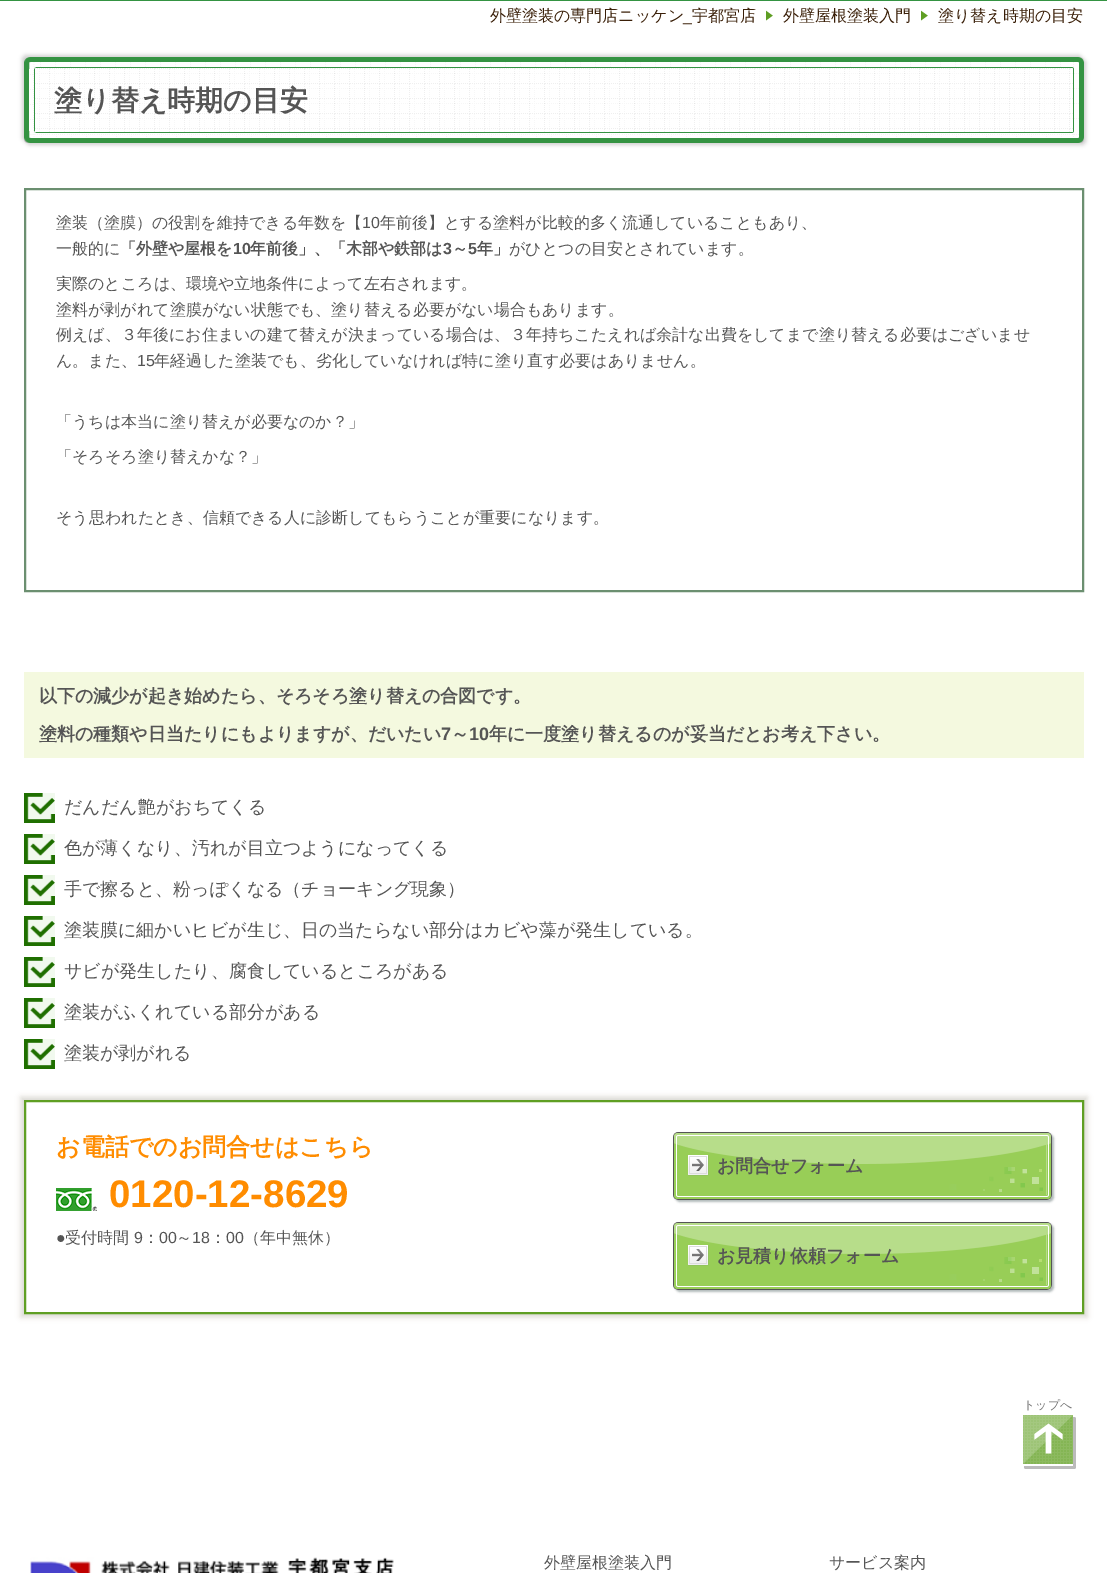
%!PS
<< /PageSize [1107 1573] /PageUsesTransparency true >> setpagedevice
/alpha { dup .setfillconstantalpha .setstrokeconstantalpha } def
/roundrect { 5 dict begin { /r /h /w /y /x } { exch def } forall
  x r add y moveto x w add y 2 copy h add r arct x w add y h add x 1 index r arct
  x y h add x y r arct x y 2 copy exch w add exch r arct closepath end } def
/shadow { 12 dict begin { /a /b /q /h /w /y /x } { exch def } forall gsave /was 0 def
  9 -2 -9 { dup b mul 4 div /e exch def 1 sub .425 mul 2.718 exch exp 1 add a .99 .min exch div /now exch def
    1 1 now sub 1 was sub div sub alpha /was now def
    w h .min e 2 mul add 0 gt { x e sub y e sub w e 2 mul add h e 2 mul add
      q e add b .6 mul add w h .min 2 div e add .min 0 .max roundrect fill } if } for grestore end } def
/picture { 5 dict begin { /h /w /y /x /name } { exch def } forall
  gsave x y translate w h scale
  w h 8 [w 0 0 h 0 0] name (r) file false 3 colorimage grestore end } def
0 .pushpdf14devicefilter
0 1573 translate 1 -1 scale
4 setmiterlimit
1 setgray
0 0 1107 1573 rectfill
0.204 0.576 0.259 setrgbcolor
0 0 1107 1 rectfill
/WenQuanYiZenHei-Medium [16 0 0 -16 0 0] selectfont
0.227 0.122 0.031 setrgbcolor
490 21 moveto (外壁塗装の専門店ニッケン) show
/LiberationSans-Regular [16 0 0 -16 0 0] selectfont
683 21 moveto (_) show
/WenQuanYiZenHei-Medium [16 0 0 -16 0 0] selectfont
692 21 moveto (宇都宮店) show
(img1.rgb) 766 10 7 11 picture
783 21 moveto (外壁屋根塗装入門) show
(img1.rgb) 921 10 7 11 picture
938 21 moveto (塗り替え時期の目安) show
0.82 0.816 0.816 setrgbcolor
22 55 1060 86 4 2 1 shadow
26 59 1060 86 4 2 1 shadow
(img2.rgb) 24 57 1060 86 picture
(img3.rgb) 24 69 1060 62 picture
(img4.rgb) 36 57 1035 86 picture
(img5.rgb) 35 68 1038 64 picture
/WenQuanYiZenHei-Bold [28 0 0 -28 0 0] selectfont
0.333 setgray
54 110 moveto (塗り替え時期の目安) show
0.42 0.561 0.439 setrgbcolor
2 setlinewidth
25 189 1058 402 rectstroke
/WenQuanYiZenHei-Medium [16 0 0 -16 0 0] selectfont
0.333 setgray
56 228 moveto (塗装（塗膜）の役割を維持できる年数を【) show
/LiberationSans-Regular [16 0 0 -16 0 0] selectfont
362 228 moveto (10) show
/WenQuanYiZenHei-Medium [16 0 0 -16 0 0] selectfont
380 228 moveto (年前後】とする塗料が比較的多く流通していることもあり、) show
56 254 moveto (一般的に) show
/WenQuanYiZenHei-Bold [16 0 0 -16 0 0] selectfont
120 254 moveto (「外壁や屋根を) show
/LiberationSans-Bold [16 0 0 -16 0 0] selectfont
233 254 moveto (10) show
/WenQuanYiZenHei-Bold [16 0 0 -16 0 0] selectfont
250 254 moveto (年前後」、「木部や鉄部は) show
/LiberationSans-Bold [16 0 0 -16 0 0] selectfont
443 254 moveto (3) show
/WenQuanYiZenHei-Bold [16 0 0 -16 0 0] selectfont
452 254 moveto (～) show
/LiberationSans-Bold [16 0 0 -16 0 0] selectfont
468 254 moveto (5) show
/WenQuanYiZenHei-Bold [16 0 0 -16 0 0] selectfont
477 254 moveto (年」) show
/WenQuanYiZenHei-Medium [16 0 0 -16 0 0] selectfont
509 254 moveto (がひとつの目安とされています。) show
56 289 moveto (実際のところは、環境や立地条件によって左右されます。) show
56 315 moveto (塗料が剥がれて塗膜がない状態でも、塗り替える必要がない場合もあります。) show
56 340 moveto (例えば、３年後にお住まいの建て替えが決まっている場合は、３年持ちこたえれば余計な出費をしてまで塗り替える必要はございませ) show
56 366 moveto (ん。また、) show
/LiberationSans-Regular [16 0 0 -16 0 0] selectfont
137 366 moveto (15) show
/WenQuanYiZenHei-Medium [16 0 0 -16 0 0] selectfont
154 366 moveto (年経過した塗装でも、劣化していなければ特に塗り直す必要はありません。) show
56 427 moveto (「うちは本当に塗り替えが必要なのか？」) show
56 462 moveto (「そろそろ塗り替えかな？」) show
56 523 moveto (そう思われたとき、信頼できる人に診断してもらうことが重要になります。) show
0.957 0.976 0.875 setrgbcolor
24 672 1060 86 rectfill
/WenQuanYiZenHei-Bold [18 0 0 -18 0 0] selectfont
0.333 setgray
39 702 moveto (以下の減少が起き始めたら、そろそろ塗り替えの合図です。) show
39 740 moveto (塗料の種類や日当たりにもよりますが、だいたい) show
/LiberationSans-Bold [18 0 0 -18 0 0] selectfont
441 740 moveto (7) show
/WenQuanYiZenHei-Bold [18 0 0 -18 0 0] selectfont
451 740 moveto (～) show
/LiberationSans-Bold [18 0 0 -18 0 0] selectfont
469 740 moveto (10) show
/WenQuanYiZenHei-Bold [18 0 0 -18 0 0] selectfont
489 740 moveto (年に一度塗り替えるのが妥当だとお考え下さい。) show
(img6.rgb) 24 793 31 30 picture
/WenQuanYiZenHei-Medium [18 0 0 -18 0 0] selectfont
64 813 moveto (だんだん艶がおちてくる) show
(img6.rgb) 24 834 31 30 picture
64 854 moveto (色が薄くなり、汚れが目立つようになってくる) show
(img6.rgb) 24 875 31 30 picture
64 895 moveto (手で擦ると、粉っぽくなる（チョーキング現象）) show
(img6.rgb) 24 916 31 30 picture
64 936 moveto (塗装膜に細かいヒビが生じ、日の当たらない部分はカビや藻が発生している。) show
(img6.rgb) 24 957 31 30 picture
64 977 moveto (サビが発生したり、腐食しているところがある) show
(img6.rgb) 24 998 31 30 picture
64 1018 moveto (塗装がふくれている部分がある) show
(img6.rgb) 24 1039 31 30 picture
64 1059 moveto (塗装が剥がれる) show
gsave
newpath 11 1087 moveto 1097 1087 lineto 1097 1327 lineto 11 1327 lineto closepath 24 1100 moveto 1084 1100 lineto 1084 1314 lineto 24 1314 lineto closepath eoclip newpath
0.847 0.843 0.816 setrgbcolor
21 1097 1066 220 0 3 1 shadow
grestore
0.373 0.624 0.137 setrgbcolor
25 1101 1058 212 rectstroke
/WenQuanYiZenHei-Bold [24 0 0 -24 0 0] selectfont
1 0.549 0 setrgbcolor
56 1155 moveto (お電話でのお問合せはこちら) show
(img7.rgb) 56 1188 41 23 picture
/LiberationSans-Bold [38.5 0 0 -38.5 0 0] selectfont
109 1207 moveto (0120-12-8629) show
/LiberationSans-Regular [16 0 0 -16 0 0] selectfont
0.333 setgray
56 1243 moveto (●) show
/WenQuanYiZenHei-Medium [16 0 0 -16 0 0] selectfont
65 1243 moveto (受付時間) show
/LiberationSans-Regular [16 0 0 -16 0 0] selectfont
134 1243 moveto (9) show
/WenQuanYiZenHei-Medium [16 0 0 -16 0 0] selectfont
143 1243 moveto (：) show
/LiberationSans-Regular [16 0 0 -16 0 0] selectfont
159 1243 moveto (00) show
/WenQuanYiZenHei-Medium [16 0 0 -16 0 0] selectfont
176 1243 moveto (～) show
/LiberationSans-Regular [16 0 0 -16 0 0] selectfont
192 1243 moveto (18) show
/WenQuanYiZenHei-Medium [16 0 0 -16 0 0] selectfont
210 1243 moveto (：) show
/LiberationSans-Regular [16 0 0 -16 0 0] selectfont
226 1243 moveto (00) show
/WenQuanYiZenHei-Medium [16 0 0 -16 0 0] selectfont
244 1243 moveto (（年中無休）) show
0.698 0.733 0.733 setrgbcolor
675 1134 379 68 5 1 1 shadow
(img8.rgb) 673 1132 379 68 picture
0.718 0.867 0.541 setrgbcolor
678 1137 369 58 rectfill
(img9.rgb) 678 1145 368 50 picture
(img10.rgb) 983 1167 60 25 picture
(img11.rgb) 688 1155 21 21 picture
/WenQuanYiZenHei-Bold [18 0 0 -18 0 0] selectfont
0.333 setgray
717 1172 moveto (お問合せフォーム) show
0.698 0.733 0.733 setrgbcolor
675 1224 379 68 5 1 1 shadow
(img8.rgb) 673 1222 379 68 picture
0.718 0.867 0.541 setrgbcolor
678 1227 369 58 rectfill
(img9.rgb) 678 1235 368 50 picture
(img10.rgb) 983 1257 60 25 picture
(img11.rgb) 688 1245 21 21 picture
0.333 setgray
717 1262 moveto (お見積り依頼フォーム) show
(img12.rgb) 1023 1415 53 54 picture
/WenQuanYiZenHei-Medium [12 0 0 -12 0 0] selectfont
0.455 setgray
1023 1409 moveto (トップへ) show
(img13.rgb) 30 1557 364 16 picture
/WenQuanYiZenHei-Medium [16 0 0 -16 0 0] selectfont
0.333 setgray
544 1568 moveto (外壁屋根塗装入門) show
829 1568 moveto (サービス案内) show
.poppdf14devicefilter showpage
